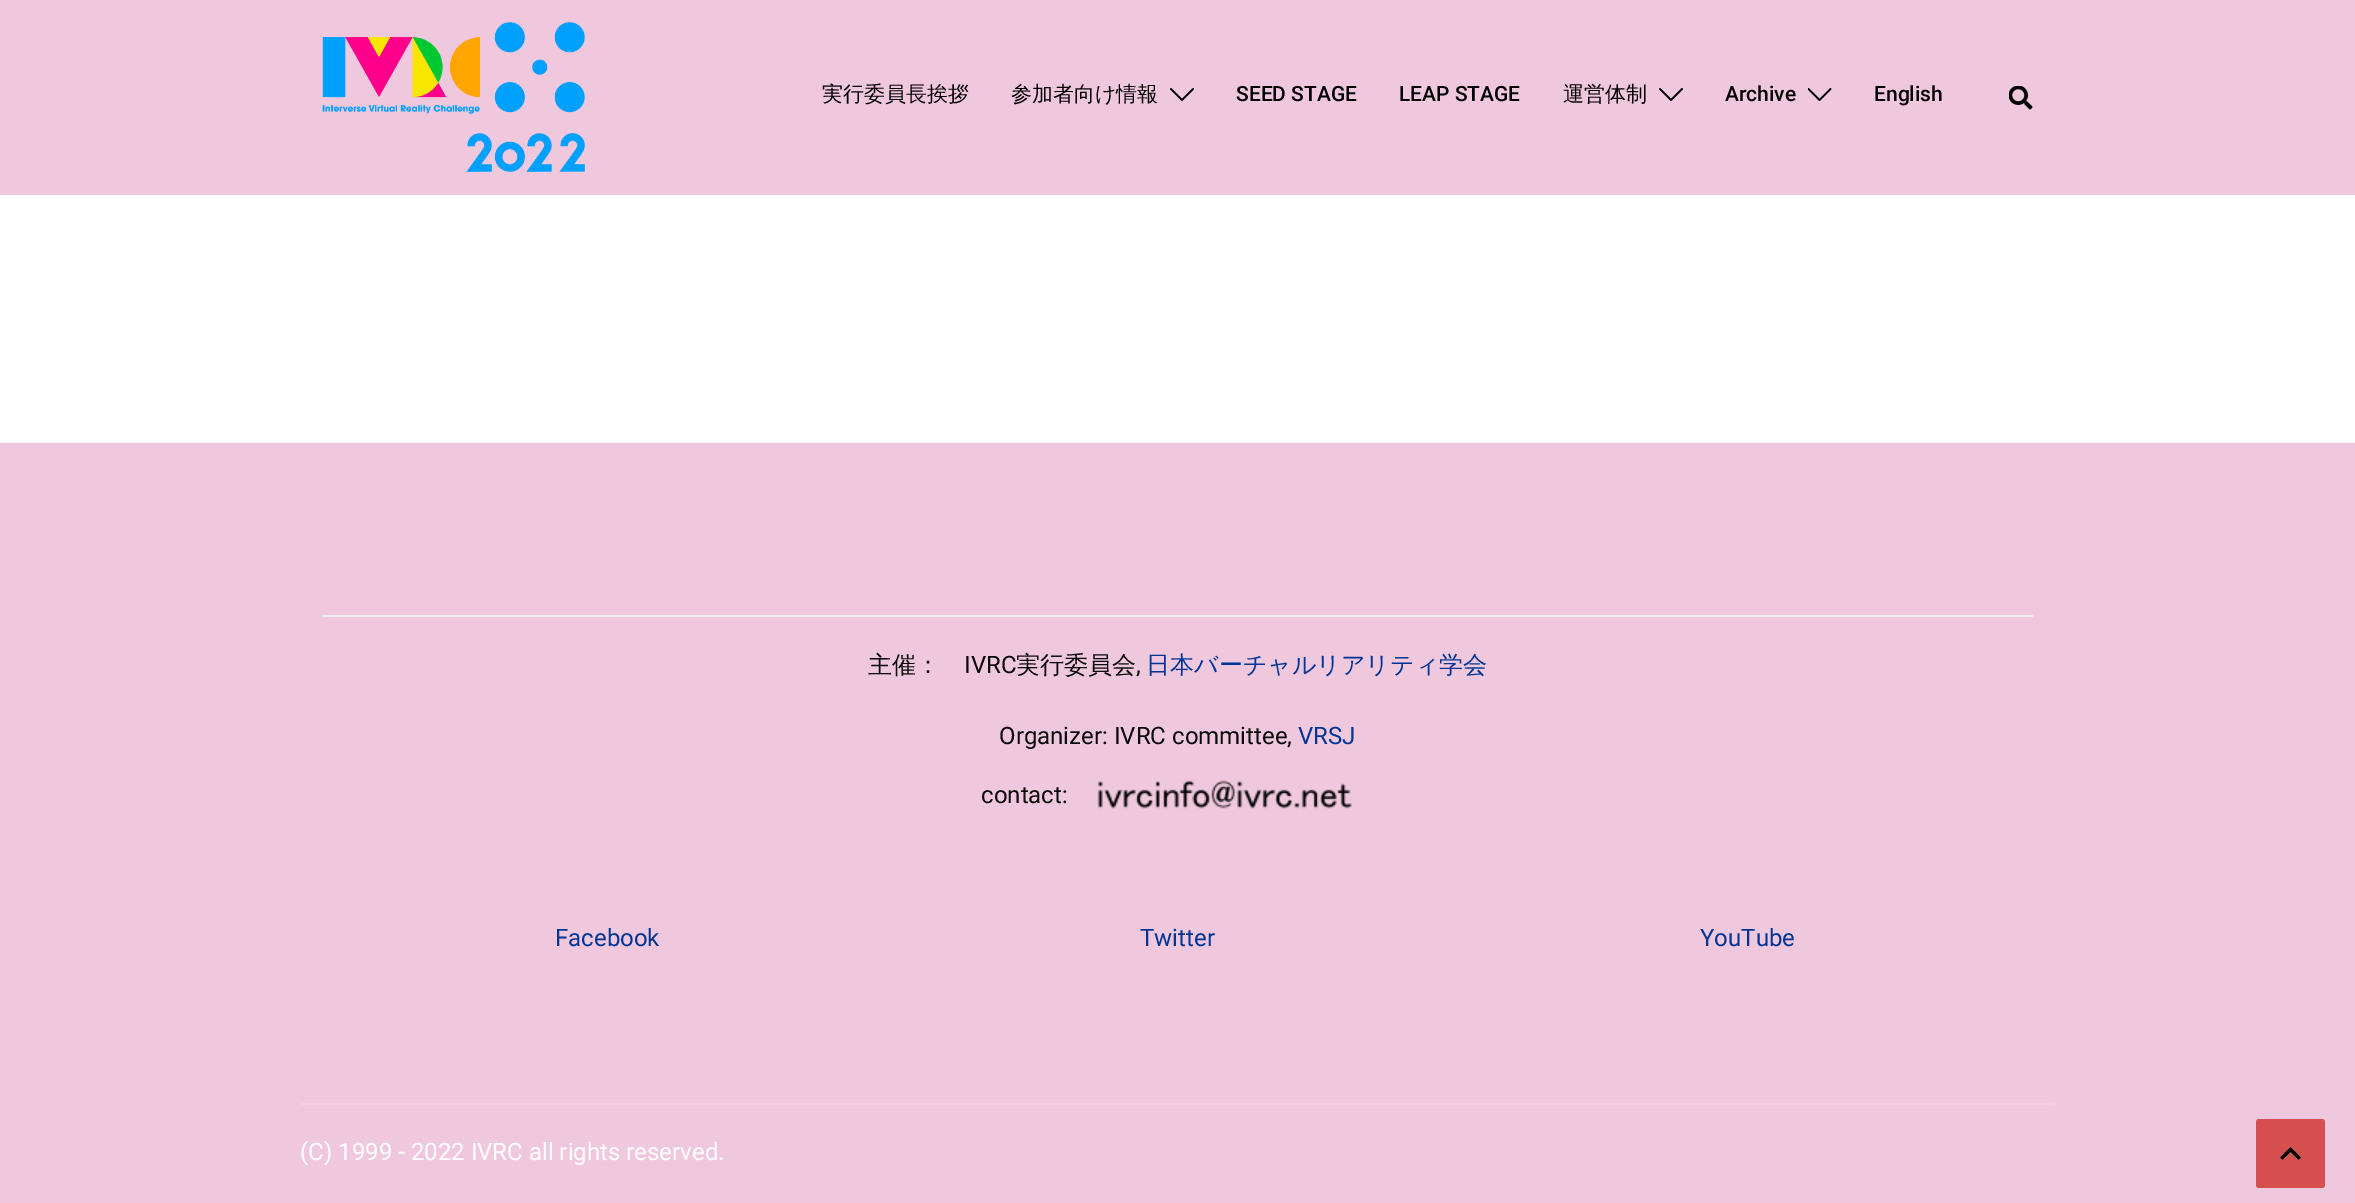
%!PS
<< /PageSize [2355 1203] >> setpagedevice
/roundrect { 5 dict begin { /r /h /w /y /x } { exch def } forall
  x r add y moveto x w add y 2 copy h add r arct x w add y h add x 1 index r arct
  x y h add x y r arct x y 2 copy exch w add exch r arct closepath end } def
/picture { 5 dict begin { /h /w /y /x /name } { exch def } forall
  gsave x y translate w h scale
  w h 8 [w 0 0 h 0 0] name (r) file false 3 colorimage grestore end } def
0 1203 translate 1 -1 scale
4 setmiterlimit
1 setgray
0 0 2355 1203 rectfill
0.941 0.784 0.867 setrgbcolor
0 0 2355 195 rectfill
(img1.rgb) 322 22 263 150 picture
/WenQuanYiZenHei-Medium [21 0 0 -21 0 0] selectfont
0 setgray
822 101 moveto (実行委員長挨拶) show
1011 101 moveto (参加者向け情報) show
(img2.rgb) 1170 88 24 13 picture
/Roboto-Medium [21 0 0 -21 0 0] selectfont
1236 101 moveto (SEED STAGE) show
1399 101 moveto (LEAP STAGE) show
/WenQuanYiZenHei-Medium [21 0 0 -21 0 0] selectfont
1563 101 moveto (運営体制) show
(img2.rgb) 1659 88 24 13 picture
/Roboto-Medium [21 0 0 -21 0 0] selectfont
1725 101 moveto (Archive) show
(img3.rgb) 1808 88 24 13 picture
1874 101 moveto (English) show
(img4.rgb) 2009 86 24 24 picture
0.941 0.784 0.867 setrgbcolor
0 443 2355 760 rectfill
0.933 setgray
323 615 1710 2 rectfill
/WenQuanYiZenHei-Medium [24 0 0 -24 0 0] selectfont
0.039 setgray
868 673 moveto (主催：) show
/Roboto-Regular [24 0 0 -24 0 0] selectfont
964 673 moveto (IVRC) show
/WenQuanYiZenHei-Medium [24 0 0 -24 0 0] selectfont
1016 673 moveto (実行委員会) show
/Roboto-Regular [24 0 0 -24 0 0] selectfont
1136 673 moveto (,) show
/WenQuanYiZenHei-Medium [24 0 0 -24 0 0] selectfont
0 0.208 0.588 setrgbcolor
1146 673 moveto (日本バーチャルリアリティ学会) show
/Roboto-Regular [24 0 0 -24 0 0] selectfont
0.039 setgray
999 744 moveto (Organizer: IVRC committee,) show
0 0.208 0.588 setrgbcolor
1298 744 moveto (VRSJ) show
0.039 setgray
981 803 moveto (contact:) show
(img5.rgb) 1097 780 255 29 picture
0 0.208 0.588 setrgbcolor
555 946 moveto (Facebook) show
1140 946 moveto (Twitter) show
1700 946 moveto (YouTube) show
0.949 0.808 0.878 setrgbcolor
300 1103 1755 2 rectfill
1 setgray
300 1160 moveto (\(C\) 1999 - 2022 IVRC all rights reserved.) show
0.839 0.314 0.314 setrgbcolor
2256 1119 69 69 3 roundrect fill
(img6.rgb) 2280 1147 21 13 picture
showpage
